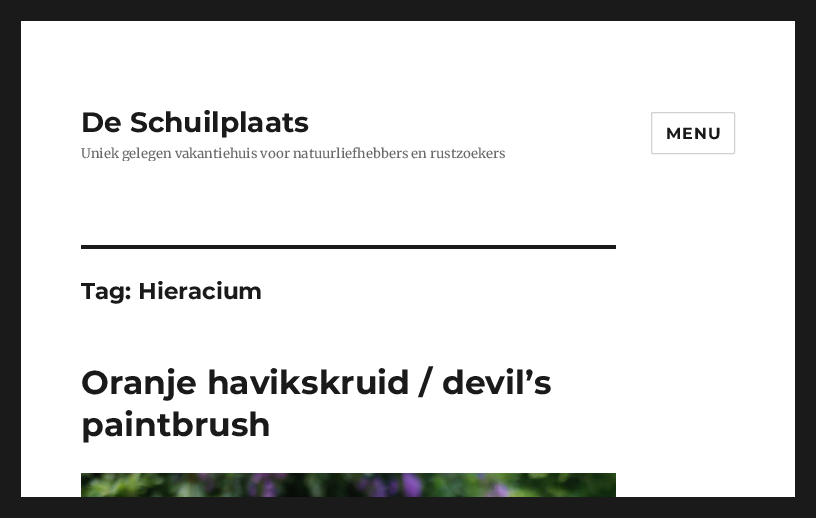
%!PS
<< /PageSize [816 518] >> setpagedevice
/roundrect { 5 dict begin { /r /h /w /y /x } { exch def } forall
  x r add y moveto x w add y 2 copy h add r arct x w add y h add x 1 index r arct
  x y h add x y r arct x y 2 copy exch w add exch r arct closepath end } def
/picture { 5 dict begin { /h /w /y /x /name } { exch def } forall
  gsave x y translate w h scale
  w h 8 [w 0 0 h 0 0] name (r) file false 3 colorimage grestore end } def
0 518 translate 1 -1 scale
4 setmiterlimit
0.102 setgray
0 0 816 518 rectfill
1 setgray
21 21 774 476 rectfill
/Montserrat-Thin [28 0 0 -28 0 0] selectfont
0.102 setgray
81 132 moveto (De Schuilplaats) show
gsave
81 105 424 56 rectclip
/Merriweather-Regular [13 0 0 -13 0 0] selectfont
0.408 setgray
81 158 moveto (Uniek gelegen vakantiehuis voor natuurliefhebbers en rustzoekers) show
grestore
0.82 setgray
651.5 112.5 83 41 1.5 roundrect stroke
/Montserrat-Thin [16 0 0 -16 0 0] selectfont
0.102 setgray
666 139 moveto 1 0 (MENU) ashow
81 245 535 4 rectfill
/Montserrat-Thin [23 0 0 -23 0 0] selectfont
81 299 moveto (Tag: Hieracium) show
/Montserrat-Thin [33 0 0 -33 0 0] selectfont
81 394 moveto (Oranje havikskruid / devil’s) show
81 436 moveto (paintbrush) show
(img1.rgb) 81 473 535 24 picture
showpage
